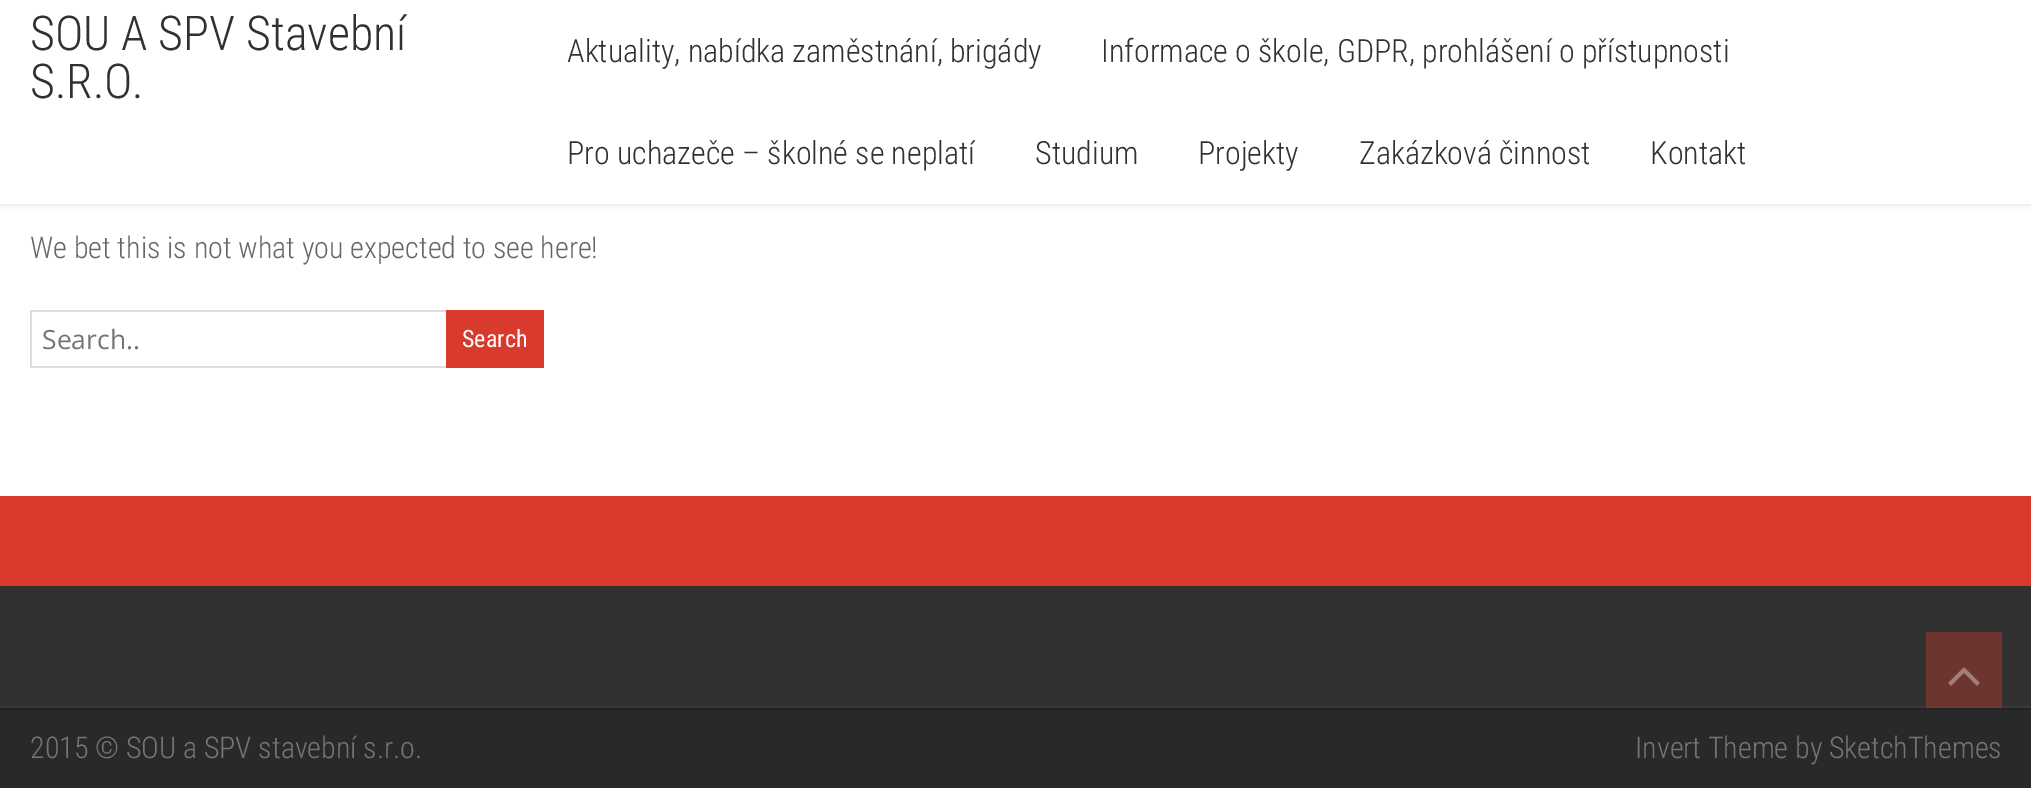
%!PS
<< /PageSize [2031 788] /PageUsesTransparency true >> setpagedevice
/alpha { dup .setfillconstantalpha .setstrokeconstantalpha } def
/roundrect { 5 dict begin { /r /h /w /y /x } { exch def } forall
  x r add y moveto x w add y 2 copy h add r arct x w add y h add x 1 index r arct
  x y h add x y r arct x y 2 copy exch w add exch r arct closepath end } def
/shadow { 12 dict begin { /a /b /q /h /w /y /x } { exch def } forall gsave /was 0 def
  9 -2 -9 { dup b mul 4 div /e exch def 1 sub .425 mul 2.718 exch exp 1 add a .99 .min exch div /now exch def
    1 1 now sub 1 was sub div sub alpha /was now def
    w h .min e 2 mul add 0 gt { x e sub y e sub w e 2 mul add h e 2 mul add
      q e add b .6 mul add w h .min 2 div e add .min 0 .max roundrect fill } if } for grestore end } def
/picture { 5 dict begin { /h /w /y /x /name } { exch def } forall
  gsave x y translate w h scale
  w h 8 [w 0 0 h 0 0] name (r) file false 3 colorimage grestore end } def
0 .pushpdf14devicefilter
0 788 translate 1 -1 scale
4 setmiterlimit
1 setgray
0 0 2031 788 rectfill
0 setgray
0 0 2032 204 0 3 0.15 shadow
1 setgray
0 0 2031 204 rectfill
/RobotoCondensed-Light [48 0 0 -48 0 0] selectfont
0.192 setgray
30 50 moveto (SOU A SPV Stavební) show
30 98 moveto (S.R.O.) show
/RobotoCondensed-Light [32 0 0 -32 0 0] selectfont
567 62 moveto (Aktuality, nabídka zaměstnání, brigády) show
1101 62 moveto (Informace o škole, GDPR, prohlášení o přístupnosti) show
567 164 moveto (Pro uchazeče – školné se neplatí) show
1035 164 moveto (Studium) show
1198 164 moveto (Projekty) show
1359 164 moveto (Zakázková činnost) show
1650 164 moveto (Kontakt) show
/RobotoCondensed-Light [30 0 0 -30 0 0] selectfont
0.4 setgray
30 258 moveto (We bet this is not what you expected to see here!) show
0.867 setgray
30 310 416 2 rectfill
30 366 416 2 rectfill
30 310 2 58 rectfill
/OpenSans-Regular [26.5 0 0 -26.5 0 0] selectfont
0.459 setgray
42 349 moveto (Search..) show
0.847 0.231 0.176 setrgbcolor
446 310 98 58 rectfill
/RobotoCondensed-Regular [24 0 0 -24 0 0] selectfont
1 setgray
462 347 moveto (Search) show
0.847 0.231 0.176 setrgbcolor
0 496 2031 90 rectfill
0.192 setgray
0 586 2031 120 rectfill
0.427 0.208 0.188 setrgbcolor
1926 632 76 74 rectfill
0.161 setgray
0 710 2031 78 rectfill
0.133 setgray
0 708 2031 2 rectfill
0.22 setgray
0 706 2031 2 rectfill
0.447 0.224 0.204 setrgbcolor
1926 706 76 2 rectfill
/RobotoCondensed-Light [30 0 0 -30 0 0] selectfont
0.459 setgray
30 758 moveto (2015 © SOU a SPV stavební s.r.o.) show
1635 758 moveto (Invert Theme by SketchThemes) show
(img1.rgb) 1948 667 32 19 picture
.poppdf14devicefilter showpage
